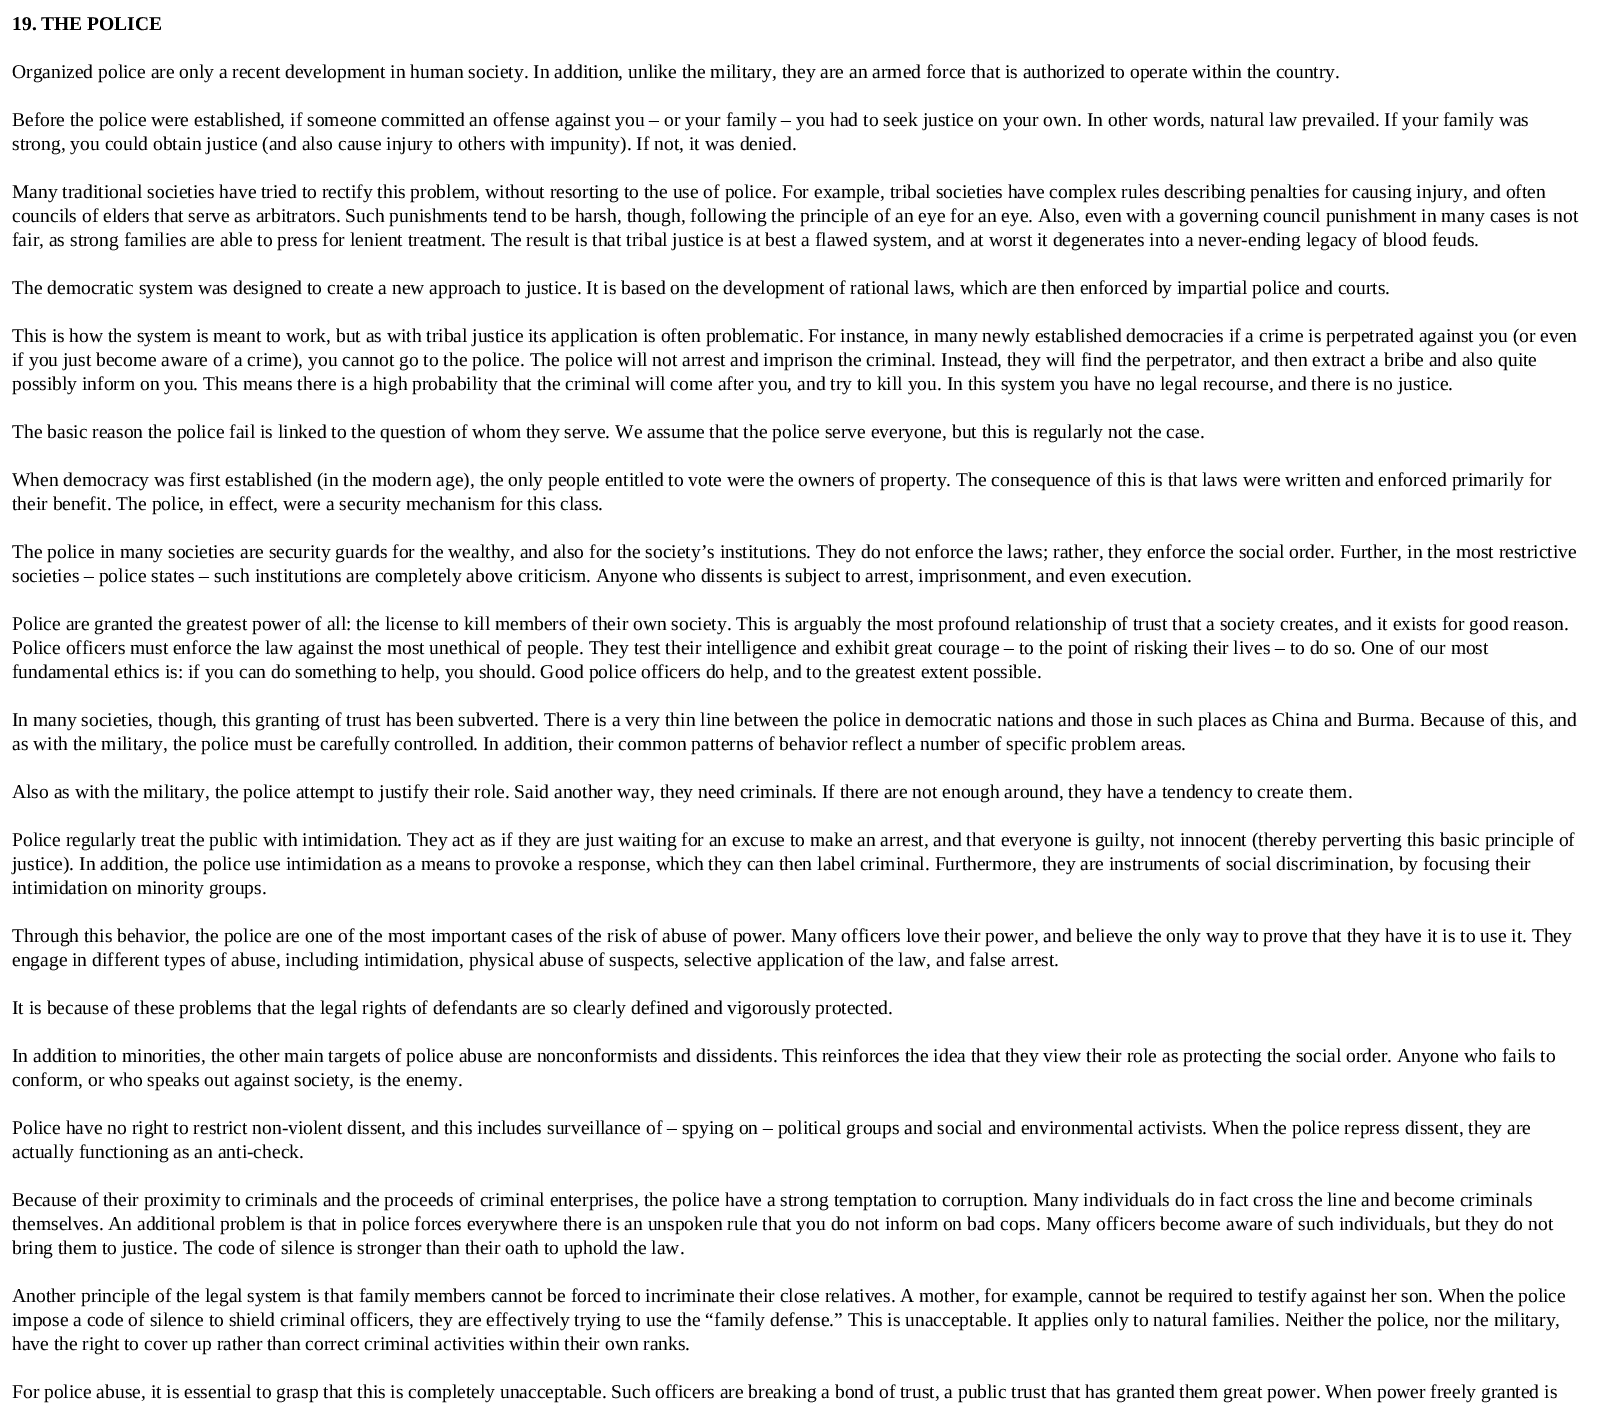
%!PS
<< /PageSize [1599 1405] >> setpagedevice
0 1405 translate 1 -1 scale
4 setmiterlimit
1 setgray
0 0 1599 1405 rectfill
/LiberationSerif-Bold [19.5 0 0 -19.5 0 0] selectfont
0 setgray
12 30 moveto (19. THE POLICE) show
/LiberationSerif-Regular [19.5 0 0 -19.5 0 0] selectfont
12 78 moveto (Organized police are only a recent development in human society. In addition, unlike the military, they are an armed force that is authorized to operate within the country.) show
12 126 moveto (Before the police were established, if someone committed an offense against you – or your family – you had to seek justice on your own. In other words, natural law prevailed. If your family was) show
12 150 moveto (strong, you could obtain justice \(and also cause injury to others with impunity\). If not, it was denied.) show
12 198 moveto (Many traditional societies have tried to rectify this problem, without resorting to the use of police. For example, tribal societies have complex rules describing penalties for causing injury, and often) show
12 222 moveto (councils of elders that serve as arbitrators. Such punishments tend to be harsh, though, following the principle of an eye for an eye. Also, even with a governing council punishment in many cases is not) show
12 246 moveto (fair, as strong families are able to press for lenient treatment. The result is that tribal justice is at best a flawed system, and at worst it degenerates into a never-ending legacy of blood feuds.) show
12 294 moveto (The democratic system was designed to create a new approach to justice. It is based on the development of rational laws, which are then enforced by impartial police and courts.) show
12 342 moveto (This is how the system is meant to work, but as with tribal justice its application is often problematic. For instance, in many newly established democracies if a crime is perpetrated against you \(or even) show
12 366 moveto (if you just become aware of a crime\), you cannot go to the police. The police will not arrest and imprison the criminal. Instead, they will find the perpetrator, and then extract a bribe and also quite) show
12 390 moveto (possibly inform on you. This means there is a high probability that the criminal will come after you, and try to kill you. In this system you have no legal recourse, and there is no justice.) show
12 438 moveto (The basic reason the police fail is linked to the question of whom they serve. We assume that the police serve everyone, but this is regularly not the case.) show
12 486 moveto (When democracy was first established \(in the modern age\), the only people entitled to vote were the owners of property. The consequence of this is that laws were written and enforced primarily for) show
12 510 moveto (their benefit. The police, in effect, were a security mechanism for this class.) show
12 558 moveto (The police in many societies are security guards for the wealthy, and also for the society’s institutions. They do not enforce the laws; rather, they enforce the social order. Further, in the most restrictive) show
12 582 moveto (societies – police states – such institutions are completely above criticism. Anyone who dissents is subject to arrest, imprisonment, and even execution.) show
12 630 moveto (Police are granted the greatest power of all: the license to kill members of their own society. This is arguably the most profound relationship of trust that a society creates, and it exists for good reason.) show
12 654 moveto (Police officers must enforce the law against the most unethical of people. They test their intelligence and exhibit great courage – to the point of risking their lives – to do so. One of our most) show
12 678 moveto (fundamental ethics is: if you can do something to help, you should. Good police officers do help, and to the greatest extent possible.) show
12 726 moveto (In many societies, though, this granting of trust has been subverted. There is a very thin line between the police in democratic nations and those in such places as China and Burma. Because of this, and) show
12 750 moveto (as with the military, the police must be carefully controlled. In addition, their common patterns of behavior reflect a number of specific problem areas.) show
12 798 moveto (Also as with the military, the police attempt to justify their role. Said another way, they need criminals. If there are not enough around, they have a tendency to create them.) show
12 846 moveto (Police regularly treat the public with intimidation. They act as if they are just waiting for an excuse to make an arrest, and that everyone is guilty, not innocent \(thereby perverting this basic principle of) show
12 870 moveto (justice\). In addition, the police use intimidation as a means to provoke a response, which they can then label criminal. Furthermore, they are instruments of social discrimination, by focusing their) show
12 894 moveto (intimidation on minority groups.) show
12 942 moveto (Through this behavior, the police are one of the most important cases of the risk of abuse of power. Many officers love their power, and believe the only way to prove that they have it is to use it. They) show
12 966 moveto (engage in different types of abuse, including intimidation, physical abuse of suspects, selective application of the law, and false arrest.) show
12 1014 moveto (It is because of these problems that the legal rights of defendants are so clearly defined and vigorously protected.) show
12 1062 moveto (In addition to minorities, the other main targets of police abuse are nonconformists and dissidents. This reinforces the idea that they view their role as protecting the social order. Anyone who fails to) show
12 1086 moveto (conform, or who speaks out against society, is the enemy.) show
12 1134 moveto (Police have no right to restrict non-violent dissent, and this includes surveillance of – spying on – political groups and social and environmental activists. When the police repress dissent, they are) show
12 1158 moveto (actually functioning as an anti-check.) show
12 1206 moveto (Because of their proximity to criminals and the proceeds of criminal enterprises, the police have a strong temptation to corruption. Many individuals do in fact cross the line and become criminals) show
12 1230 moveto (themselves. An additional problem is that in police forces everywhere there is an unspoken rule that you do not inform on bad cops. Many officers become aware of such individuals, but they do not) show
12 1254 moveto (bring them to justice. The code of silence is stronger than their oath to uphold the law.) show
12 1302 moveto (Another principle of the legal system is that family members cannot be forced to incriminate their close relatives. A mother, for example, cannot be required to testify against her son. When the police) show
12 1326 moveto (impose a code of silence to shield criminal officers, they are effectively trying to use the “family defense.” This is unacceptable. It applies only to natural families. Neither the police, nor the military,) show
12 1350 moveto (have the right to cover up rather than correct criminal activities within their own ranks.) show
12 1398 moveto (For police abuse, it is essential to grasp that this is completely unacceptable. Such officers are breaking a bond of trust, a public trust that has granted them great power. When power freely granted is) show
showpage
